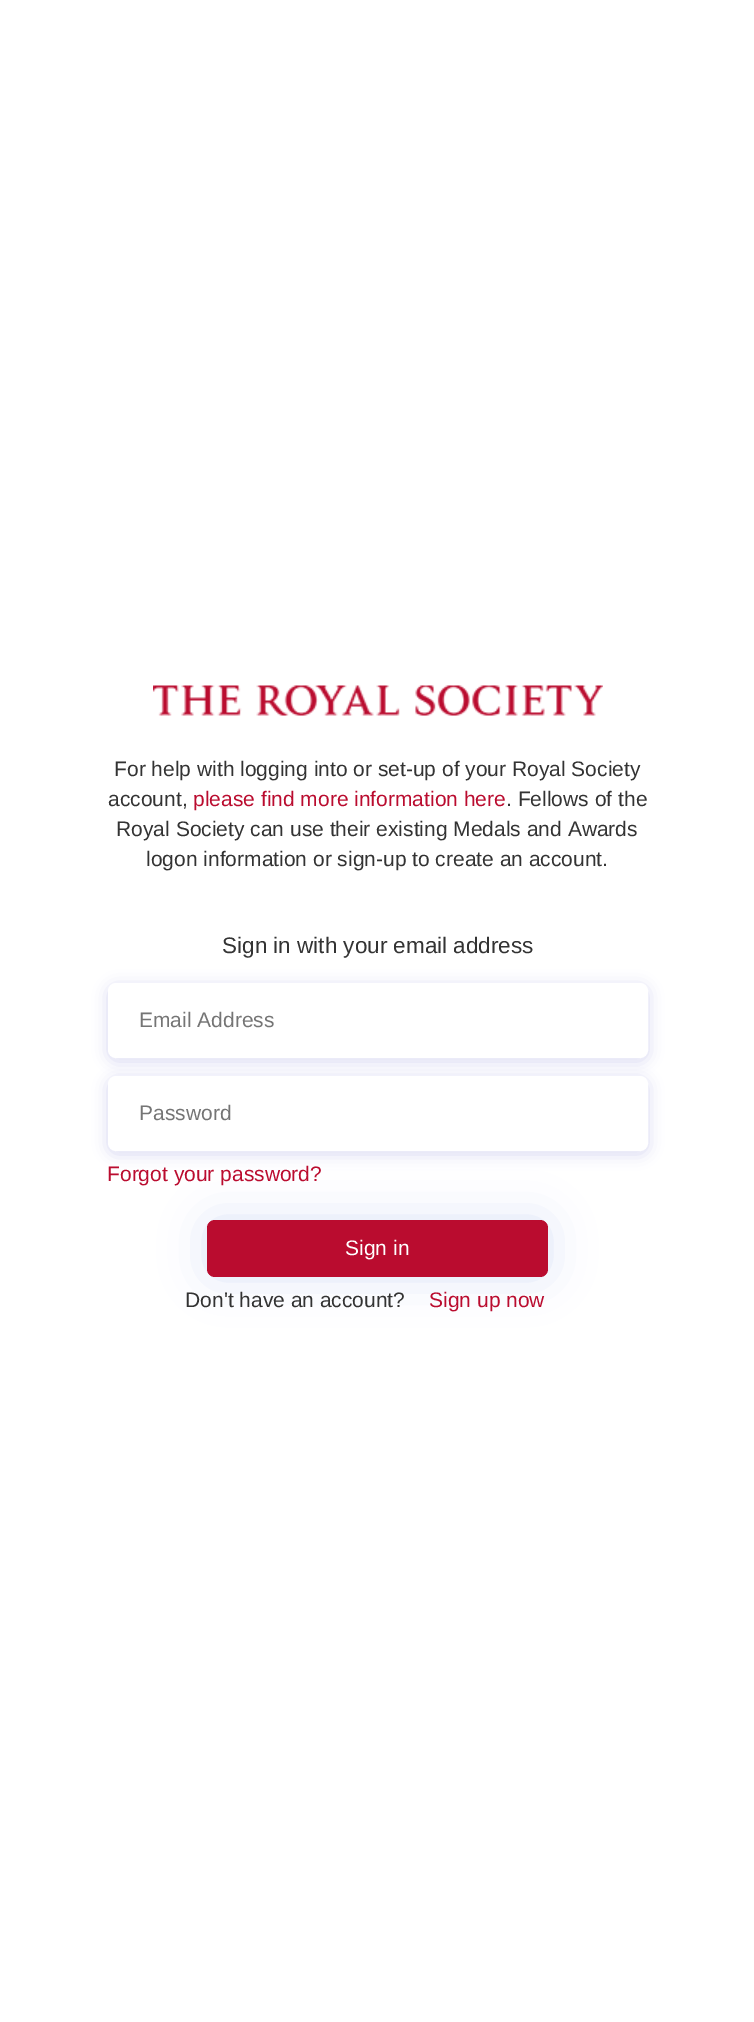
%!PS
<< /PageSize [754 2022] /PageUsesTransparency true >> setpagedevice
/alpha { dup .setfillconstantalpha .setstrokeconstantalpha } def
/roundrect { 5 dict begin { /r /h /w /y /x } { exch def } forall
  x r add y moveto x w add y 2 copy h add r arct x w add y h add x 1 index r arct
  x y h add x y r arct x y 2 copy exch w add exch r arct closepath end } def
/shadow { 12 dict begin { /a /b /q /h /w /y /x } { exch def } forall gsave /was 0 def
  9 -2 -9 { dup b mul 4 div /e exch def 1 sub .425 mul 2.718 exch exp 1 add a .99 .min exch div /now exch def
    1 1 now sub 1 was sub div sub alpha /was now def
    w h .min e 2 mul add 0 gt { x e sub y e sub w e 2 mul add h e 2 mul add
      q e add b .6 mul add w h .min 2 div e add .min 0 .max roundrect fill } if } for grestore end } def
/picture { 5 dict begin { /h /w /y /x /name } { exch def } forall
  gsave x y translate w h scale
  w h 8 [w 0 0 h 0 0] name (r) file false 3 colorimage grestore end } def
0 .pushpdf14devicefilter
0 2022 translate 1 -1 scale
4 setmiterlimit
1 setgray
0 0 754 2022 rectfill
(img1.rgb) 153 685 450 31 picture
/LiberationSans-Regular [21 0 0 -21 0 0] selectfont
0.2 setgray
114 776 moveto (For help with logging into or set-up of your Royal Society) show
108 806 moveto (account,) show
0.729 0.047 0.184 setrgbcolor
193 806 moveto (please find more information here) show
0.2 setgray
506 806 moveto (. Fellows of the) show
116 836 moveto (Royal Society can use their existing Medals and Awards) show
146 866 moveto (logon information or sign-up to create an account.) show
/LiberationSans-Regular [22.5 0 0 -22.5 0 0] selectfont
222 953 moveto (Sign in with your email address) show
0 0 0.588 setrgbcolor
108 986 540 75 8 7.5 0.15 shadow
1 setgray
109 984 538 73 7 roundrect gsave fill grestore
2 setlinewidth
stroke
/LiberationSans-Regular [21 0 0 -21 0 0] selectfont
0.459 setgray
139 1027 moveto (Email Address) show
0 0 0.588 setrgbcolor
108 1079 540 75 8 7.5 0.15 shadow
1 setgray
109 1077 538 73 7 roundrect gsave fill grestore
stroke
0.459 setgray
139 1120 moveto (Password) show
0.855 0.882 0.969 setrgbcolor
207 1220 341 57 8 22.5 1 shadow
0.729 0.047 0.184 setrgbcolor
107 1181 moveto (Forgot your password?) show
207 1220 341 57 8 roundrect fill
1 setgray
345 1255 moveto (Sign in) show
0.2 setgray
185 1307 moveto (Don't have an account?) show
0.729 0.047 0.184 setrgbcolor
429 1307 moveto (Sign up now) show
.poppdf14devicefilter showpage
